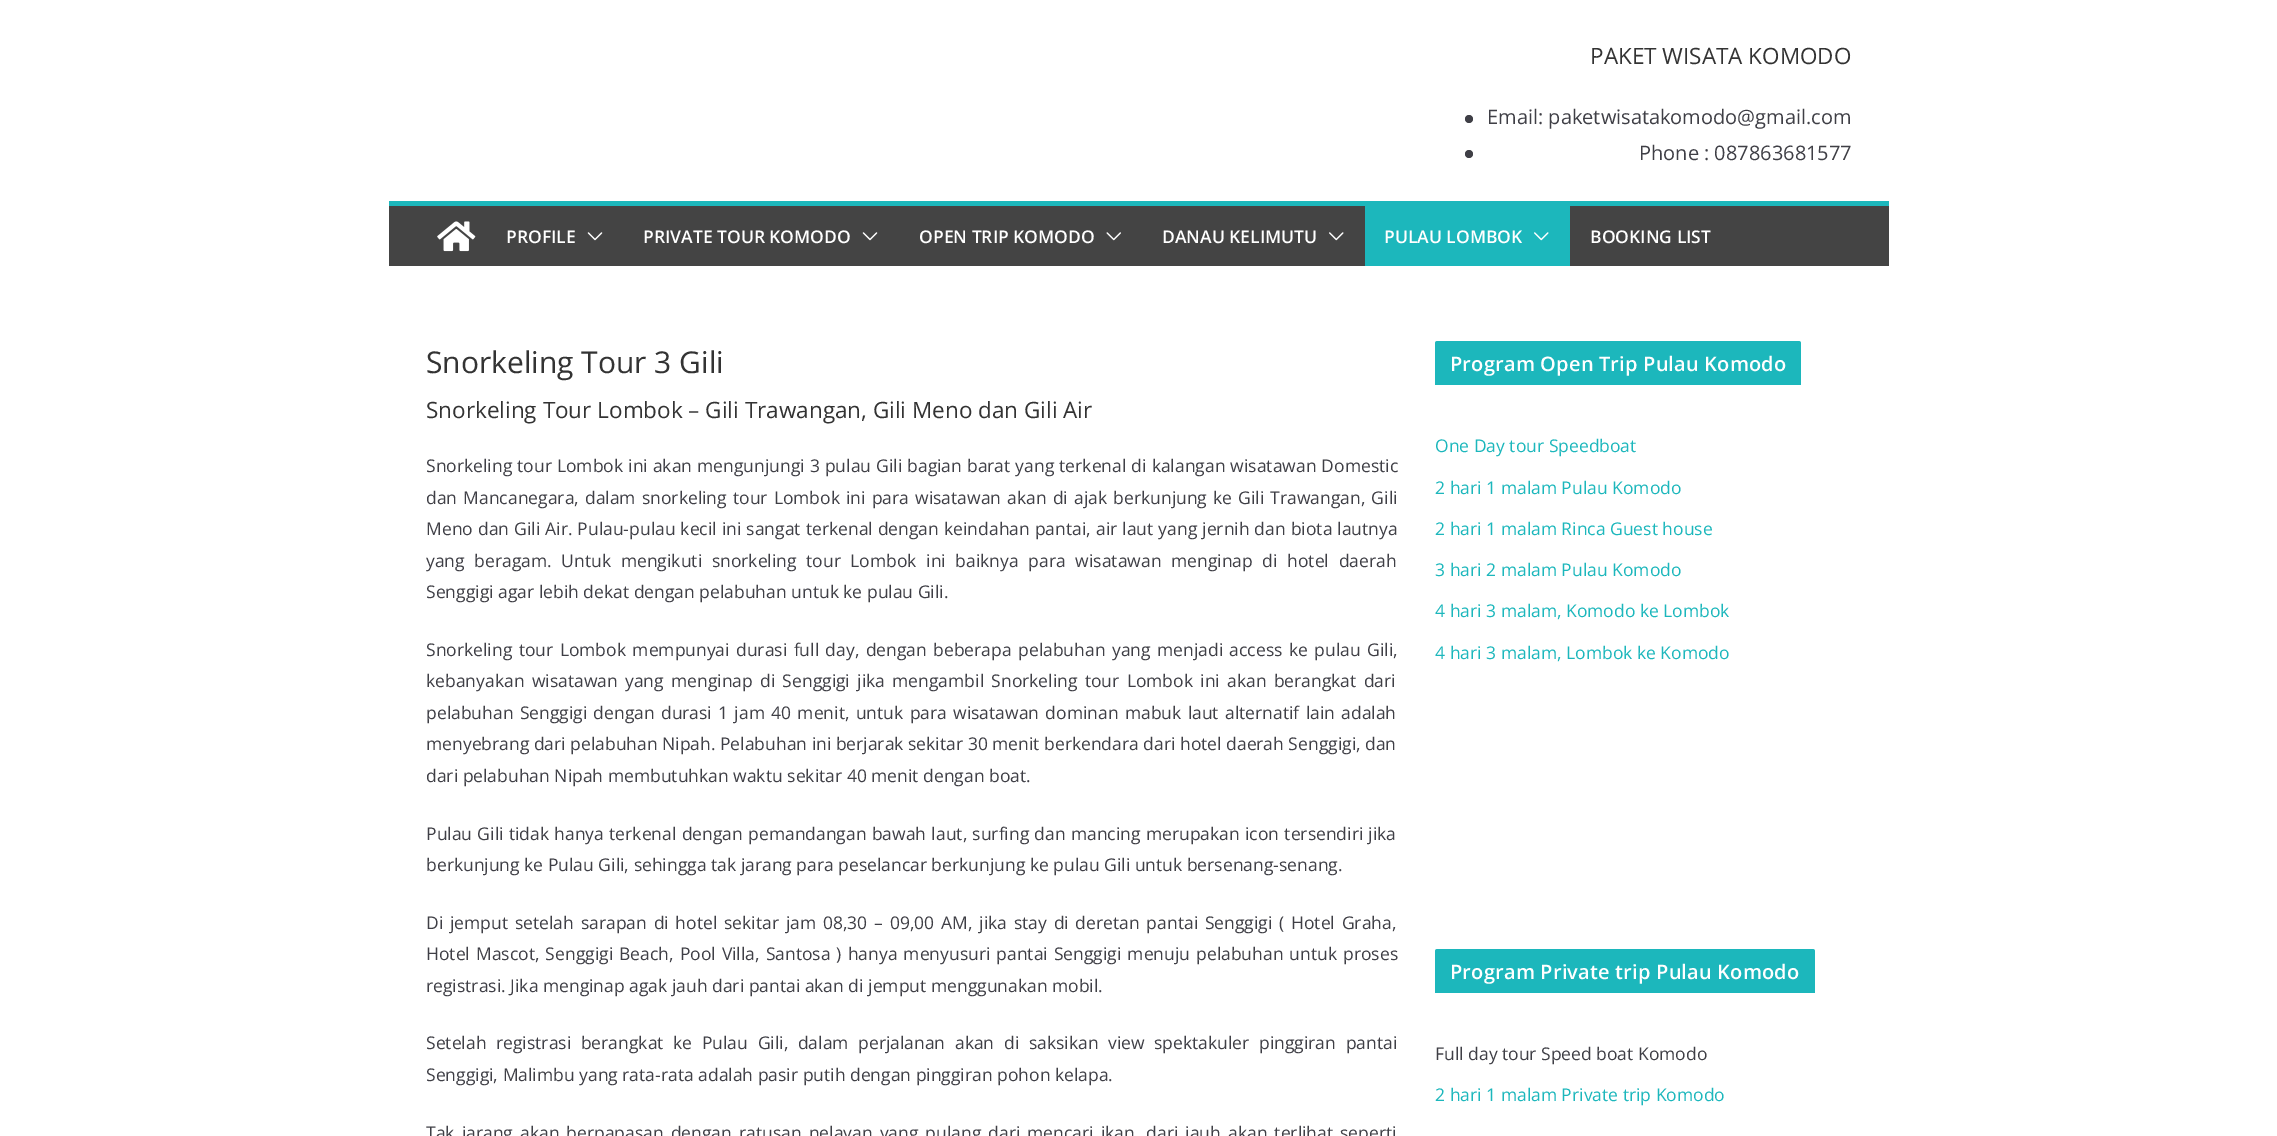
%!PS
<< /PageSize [2277 1136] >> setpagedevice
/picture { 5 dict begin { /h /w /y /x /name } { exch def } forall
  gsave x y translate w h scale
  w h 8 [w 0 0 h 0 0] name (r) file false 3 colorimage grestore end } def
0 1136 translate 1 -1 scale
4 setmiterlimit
1 setgray
0 0 2277 1136 rectfill
/OpenSans-Regular [22.5 0 0 -22.5 0 0] selectfont
0.2 setgray
1590 64 moveto (PAKET WISATA KOMODO) show
0.247 0.247 0.275 setrgbcolor
newpath 1469 119 4 0 360 arc closepath fill
/OpenSans-Regular [20 0 0 -20 0 0] selectfont
1487 124 moveto (Email: paketwisatakomodo@gmail.com) show
newpath 1469 154 4 0 360 arc closepath fill
1639 160 moveto (Phone : 087863681577) show
0.267 setgray
389 206 1500 60 rectfill
0.11 0.718 0.737 setrgbcolor
389 201 1500 5 rectfill
(img1.rgb) 437 221 39 31 picture
/OpenSans-SemiBold [17.5 0 0 -17.5 0 0] selectfont
1 setgray
506 243 moveto (PROFILE) show
(img2.rgb) 587 232 16 9 picture
643 243 moveto (PRIVATE TOUR KOMODO) show
(img2.rgb) 862 232 16 9 picture
919 243 moveto (OPEN TRIP KOMODO) show
(img3.rgb) 1106 232 15 9 picture
1162 243 moveto (DANAU KELIMUTU) show
(img4.rgb) 1329 232 15 9 picture
0.11 0.718 0.737 setrgbcolor
1365 206 205 60 rectfill
1 setgray
1384 243 moveto (PULAU LOMBOK) show
(img5.rgb) 1534 232 15 9 picture
1590 243 moveto (BOOKING LIST) show
/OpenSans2-Regular [30 0 0 -30 0 0] selectfont
0.2 setgray
426 373 moveto (Snorkeling Tour 3 Gili) show
/OpenSans-Regular [22.5 0 0 -22.5 0 0] selectfont
426 418 moveto (Snorkeling Tour Lombok – Gili Trawangan, Gili Meno dan Gili Air) show
/OpenSans-Regular [17.5 0 0 -17.5 0 0] selectfont
0.247 0.247 0.275 setrgbcolor
426 472 moveto 0.5 0 32 (Snorkeling tour Lombok ini akan mengunjungi 3 pulau Gili bagian barat yang terkenal di kalangan wisatawan Domestic) widthshow
426 504 moveto 1.6 0 32 (dan Mancanegara, dalam snorkeling tour Lombok ini para wisatawan akan di ajak berkunjung ke Gili Trawangan, Gili) widthshow
426 535 moveto 0.5 0 32 (Meno dan Gili Air. Pulau-pulau kecil ini sangat terkenal dengan keindahan pantai, air laut yang jernih dan biota lautnya) widthshow
426 567 moveto 5.1 0 32 (yang beragam. Untuk mengikuti snorkeling tour Lombok ini baiknya para wisatawan menginap di hotel daerah) widthshow
426 598 moveto (Senggigi agar lebih dekat dengan pelabuhan untuk ke pulau Gili.) show
426 656 moveto 1.9 0 32 (Snorkeling tour Lombok mempunyai durasi full day, dengan beberapa pelabuhan yang menjadi access ke pulau Gili,) widthshow
426 687 moveto 2.75 0 32 (kebanyakan wisatawan yang menginap di Senggigi jika mengambil Snorkeling tour Lombok ini akan berangkat dari) widthshow
426 719 moveto 1.75 0 32 (pelabuhan Senggigi dengan durasi 1 jam 40 menit, untuk para wisatawan dominan mabuk laut alternatif lain adalah) widthshow
426 750 moveto (menyebrang dari pelabuhan Nipah. Pelabuhan ini berjarak sekitar 30 menit berkendara dari hotel daerah Senggigi, dan) show
426 782 moveto (dari pelabuhan Nipah membutuhkan waktu sekitar 40 menit dengan boat.) show
426 840 moveto 0.75 0 32 (Pulau Gili tidak hanya terkenal dengan pemandangan bawah laut, surfing dan mancing merupakan icon tersendiri jika) widthshow
426 871 moveto (berkunjung ke Pulau Gili, sehingga tak jarang para peselancar berkunjung ke pulau Gili untuk bersenang-senang.) show
426 929 moveto 2.25 0 32 (Di jemput setelah sarapan di hotel sekitar jam 08,30 – 09,00 AM, jika stay di deretan pantai Senggigi \( Hotel Graha,) widthshow
426 960 moveto 1.5 0 32 (Hotel Mascot, Senggigi Beach, Pool Villa, Santosa \) hanya menyusuri pantai Senggigi menuju pelabuhan untuk proses) widthshow
426 992 moveto (registrasi. Jika menginap agak jauh dari pantai akan di jemput menggunakan mobil.) show
426 1049 moveto 5.1 0 32 (Setelah registrasi berangkat ke Pulau Gili, dalam perjalanan akan di saksikan view spektakuler pinggiran pantai) widthshow
426 1081 moveto (Senggigi, Malimbu yang rata-rata adalah pasir putih dengan pinggiran pohon kelapa.) show
426 1139 moveto 2.5 0 32 (Tak jarang akan berpapasan dengan ratusan nelayan yang pulang dari mencari ikan, dari jauh akan terlihat seperti) widthshow
0.11 0.718 0.737 setrgbcolor
newpath 1437.5 341 moveto 1798.5 341 lineto 1800 341 1801 342 1801 343.5 curveto 1801 385 lineto 1435 385 lineto 1435 343.5 lineto 1435 342 1436 341 1437.5 341 curveto closepath fill
/OpenSans-SemiBold [20 0 0 -20 0 0] selectfont
1 setgray
1450 371 moveto 0.2 0 (Program Open Trip Pulau Komodo) ashow
/OpenSans-Regular [17.5 0 0 -17.5 0 0] selectfont
0.11 0.718 0.737 setrgbcolor
1435 452 moveto (One Day tour Speedboat) show
1435 494 moveto (2 hari 1 malam Pulau Komodo) show
1435 535 moveto (2 hari 1 malam Rinca Guest house) show
1435 576 moveto (3 hari 2 malam Pulau Komodo) show
1435 617 moveto (4 hari 3 malam, Komodo ke Lombok) show
1435 659 moveto (4 hari 3 malam, Lombok ke Komodo) show
newpath 1437.5 949 moveto 1812.5 949 lineto 1814 949 1815 950 1815 951.5 curveto 1815 993 lineto 1435 993 lineto 1435 951.5 lineto 1435 950 1436 949 1437.5 949 curveto closepath fill
/OpenSans-SemiBold [20 0 0 -20 0 0] selectfont
1 setgray
1450 979 moveto 0.2 0 (Program Private trip Pulau Komodo) ashow
/OpenSans-Regular [17.5 0 0 -17.5 0 0] selectfont
0.247 0.247 0.275 setrgbcolor
1435 1060 moveto (Full day tour Speed boat Komodo) show
0.11 0.718 0.737 setrgbcolor
1435 1101 moveto (2 hari 1 malam Private trip Komodo) show
showpage
